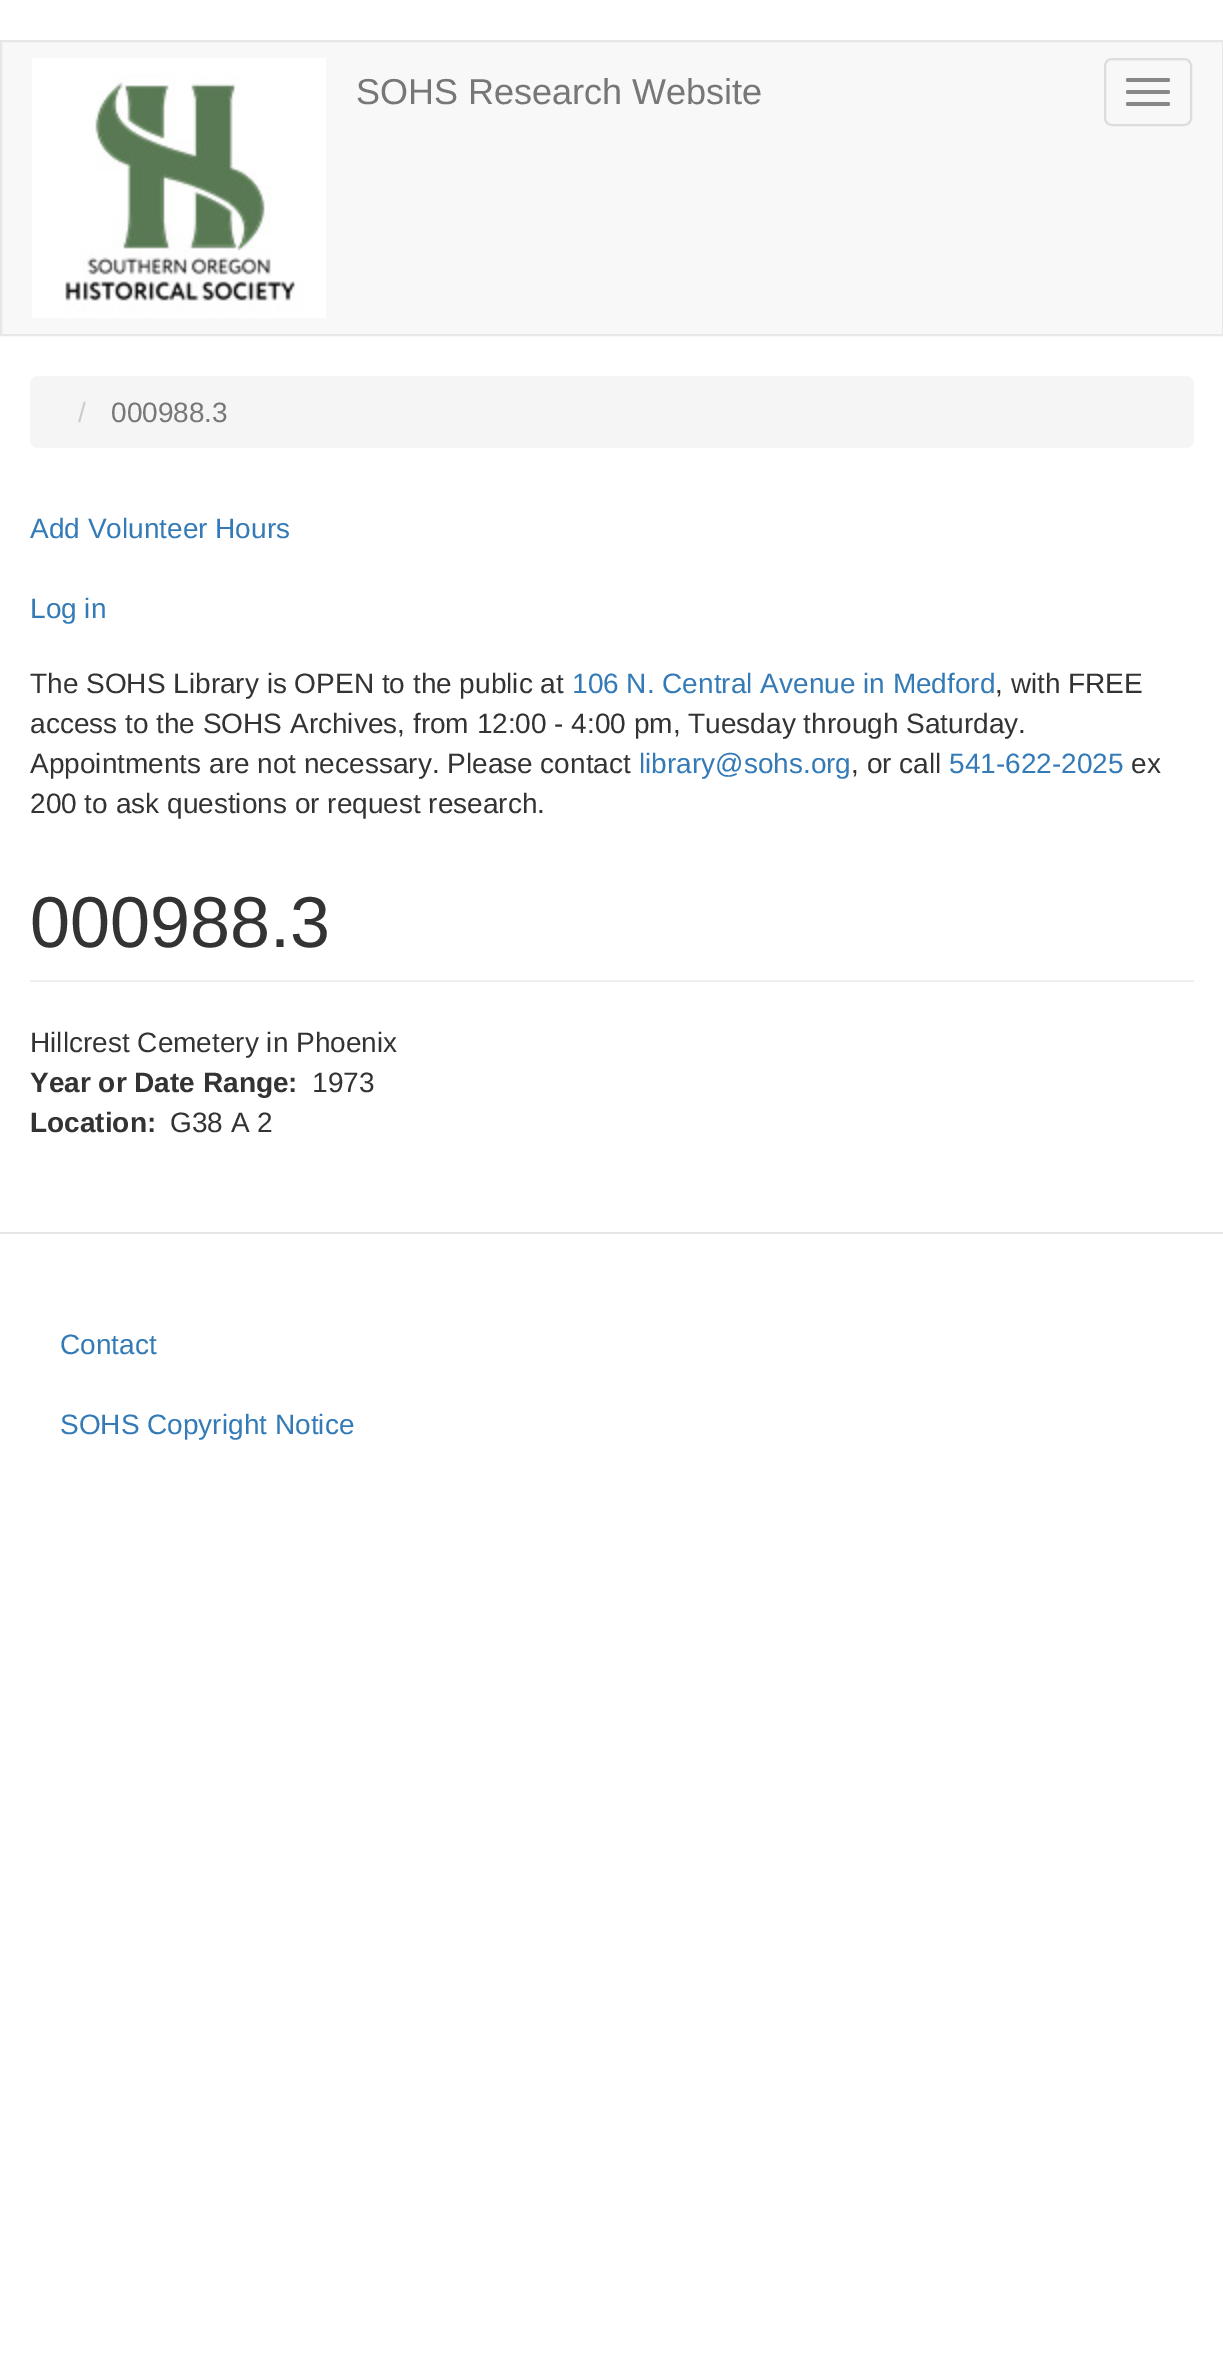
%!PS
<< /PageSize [1223 2353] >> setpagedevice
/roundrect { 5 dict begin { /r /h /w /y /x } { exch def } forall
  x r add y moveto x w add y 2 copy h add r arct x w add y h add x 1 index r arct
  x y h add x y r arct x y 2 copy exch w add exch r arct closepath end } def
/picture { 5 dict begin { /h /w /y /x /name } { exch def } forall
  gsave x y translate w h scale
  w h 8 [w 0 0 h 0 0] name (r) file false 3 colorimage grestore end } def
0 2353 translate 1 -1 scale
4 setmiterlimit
1 setgray
0 0 1223 2353 rectfill
0.973 setgray
newpath 1 41 moveto 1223 41 lineto 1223 335 lineto 1 335 lineto closepath gsave fill grestore
0.906 setgray
2 setlinewidth
stroke
(img1.rgb) 32 58 294 260 picture
/LiberationSans-Regular [36 0 0 -36 0 0] selectfont
0.467 setgray
356 104 moveto (SOHS Research Website) show
0.867 setgray
1105 59 86 66 7 roundrect stroke
0.533 setgray
1126 78 44 4 2 roundrect fill
1126 90 44 4 2 roundrect fill
1126 102 44 4 2 roundrect fill
0.961 setgray
30 376 1164 72 8 roundrect fill
/LiberationSans-Regular [28 0 0 -28 0 0] selectfont
0.8 setgray
78 422 moveto (/) show
0.467 setgray
111 422 moveto (000988.3) show
0.2 0.478 0.718 setrgbcolor
30 538 moveto (Add Volunteer Hours) show
30 618 moveto (Log in) show
0.2 setgray
30 693 moveto (The SOHS Library is OPEN to the public at) show
0.2 0.478 0.718 setrgbcolor
572 693 moveto (106 N. Central Avenue in Medford) show
0.2 setgray
995 693 moveto (, with FREE) show
30 733 moveto (access to the SOHS Archives, from 12:00 - 4:00 pm, Tuesday through Saturday.) show
30 773 moveto (Appointments are not necessary. Please contact) show
0.2 0.478 0.718 setrgbcolor
639 773 moveto (library@sohs.org) show
0.2 setgray
851 773 moveto (, or call) show
0.2 0.478 0.718 setrgbcolor
949 773 moveto (541-622-2025) show
0.2 setgray
1131 773 moveto (ex) show
30 813 moveto (200 to ask questions or request research.) show
0.933 setgray
30 980 1164 2 rectfill
/LiberationSans-Regular [72 0 0 -72 0 0] selectfont
0.2 setgray
30 947 moveto (000988.3) show
/LiberationSans-Regular [28 0 0 -28 0 0] selectfont
30 1052 moveto (Hillcrest Cemetery in Phoenix) show
/LiberationSans-Bold [28 0 0 -28 0 0] selectfont
30 1092 moveto (Year or Date Range:) show
/LiberationSans-Regular [28 0 0 -28 0 0] selectfont
312 1092 moveto (1973) show
/LiberationSans-Bold [28 0 0 -28 0 0] selectfont
30 1132 moveto (Location:) show
/LiberationSans-Regular [28 0 0 -28 0 0] selectfont
170 1132 moveto (G38 A 2) show
0.898 setgray
0 1232 1223 2 rectfill
0.2 0.478 0.718 setrgbcolor
60 1354 moveto (Contact) show
60 1434 moveto (SOHS Copyright Notice) show
showpage
